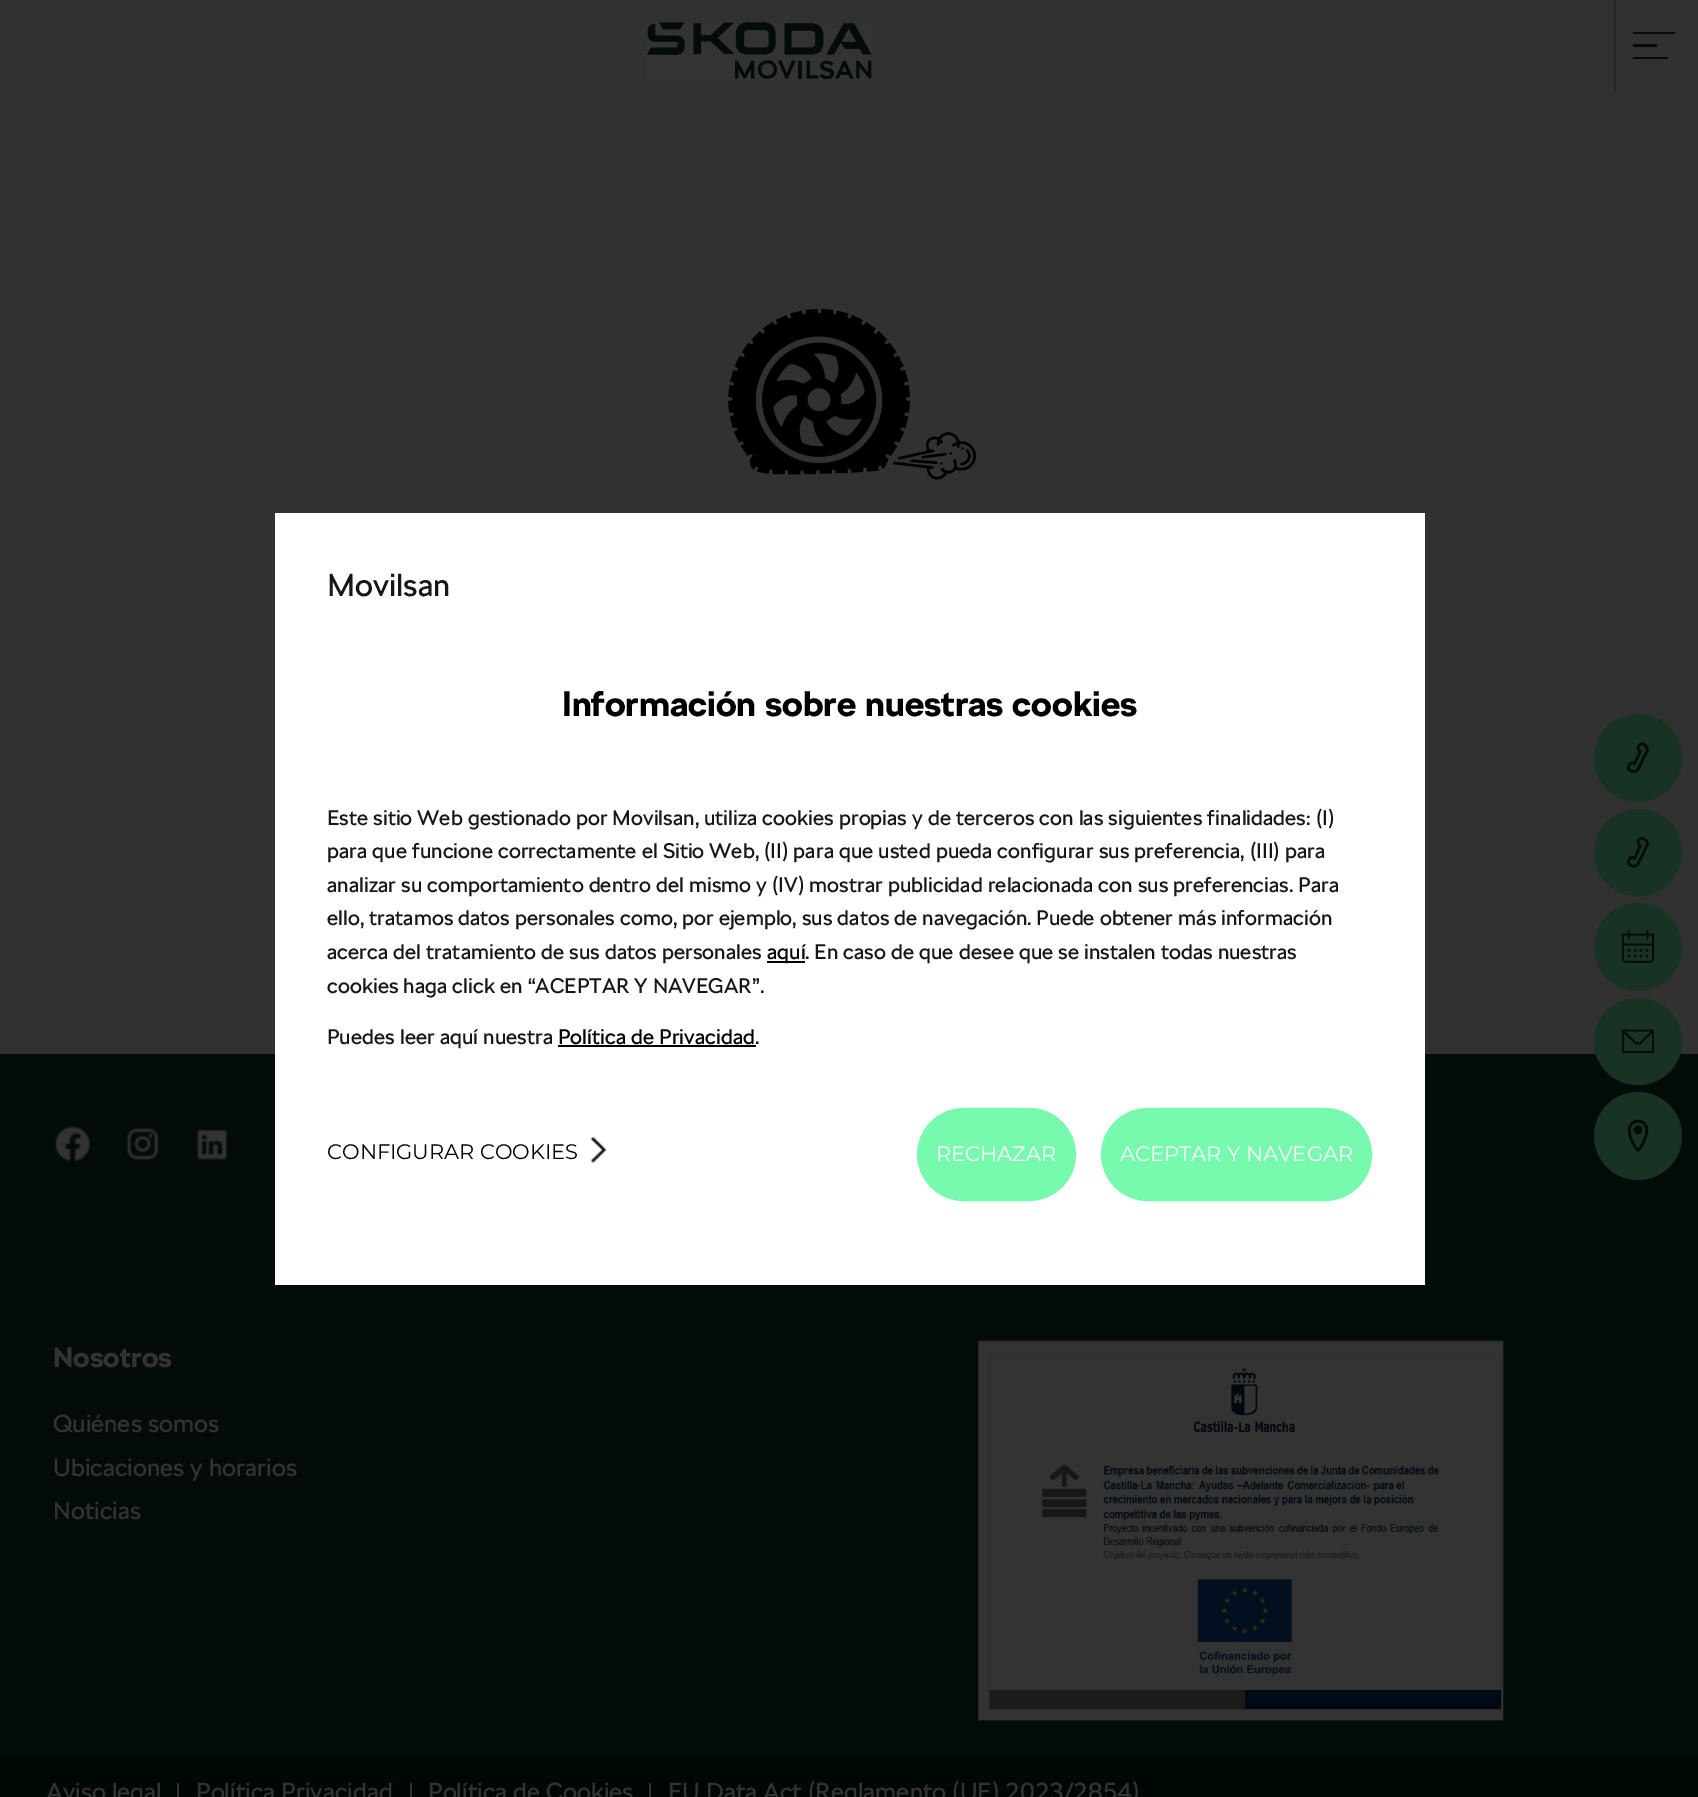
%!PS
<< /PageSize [1698 1797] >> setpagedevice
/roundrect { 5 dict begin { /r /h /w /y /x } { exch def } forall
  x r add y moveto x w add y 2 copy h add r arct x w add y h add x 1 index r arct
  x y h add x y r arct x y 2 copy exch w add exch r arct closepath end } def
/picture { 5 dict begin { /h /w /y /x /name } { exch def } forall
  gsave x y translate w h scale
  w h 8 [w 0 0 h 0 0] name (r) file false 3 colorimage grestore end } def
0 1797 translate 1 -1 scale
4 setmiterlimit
0.192 setgray
0 0 1698 1797 rectfill
(img1.rgb) 646 22 226 58 picture
0.153 setgray
1614 0 2 91 rectfill
0.039 setgray
newpath 1633 32 moveto 1675 32 lineto 1675 34 lineto 1633 34 lineto closepath 1633 44 moveto 1657 44 lineto 1657 47 lineto 1633 47 lineto closepath 1633 57 moveto 1668 57 lineto 1668 59 lineto 1633 59 lineto closepath fill
(img2.rgb) 728 308 248 172 picture
0.012 0.047 0.035 setrgbcolor
0 1054 1698 701 rectfill
1 setgray
275 513 1150 772 rectfill
/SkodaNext-Regular [31.5 0 0 -31.5 0 0] selectfont
0.086 0.09 0.094 setrgbcolor
327 596 moveto (Movilsan) show
/SkodaNext-Bold [35 0 0 -35 0 0] selectfont
0 setgray
562 716 moveto (Información sobre nuestras cookies) show
/SkodaNext-Regular [21 0 0 -21 0 0] selectfont
0.086 0.09 0.094 setrgbcolor
327 825 moveto (Este sitio Web gestionado por Movilsan, utiliza cookies propias y de terceros con las siguientes finalidades: \(I\)) show
327 858 moveto (para que funcione correctamente el Sitio Web, \(II\) para que usted pueda configurar sus preferencia, \(III\) para) show
327 892 moveto (analizar su comportamiento dentro del mismo y \(IV\) mostrar publicidad relacionada con sus preferencias. Para) show
327 925 moveto (ello, tratamos datos personales como, por ejemplo, sus datos de navegación. Puede obtener más información) show
327 959 moveto (acerca del tratamiento de sus datos personales) show
0 setgray
767 961 38 2 rectfill
767 959 moveto (aquí) show
0.086 0.09 0.094 setrgbcolor
805 959 moveto (. En caso de que desee que se instalen todas nuestras) show
327 993 moveto (cookies haga click en “ACEPTAR Y NAVEGAR”.) show
327 1044 moveto (Puedes leer aquí nuestra) show
0 setgray
558 1044 moveto (Política de Privacidad) show
558 1045 198 2 rectfill
0.086 0.09 0.094 setrgbcolor
755 1044 moveto (.) show
/Montserrat-Regular [21 0 0 -21 0 0] selectfont
0 setgray
327 1159 moveto (CONFIGURAR COOKIES) show
(img3.rgb) 590 1136 17 28 picture
0.471 0.98 0.682 setrgbcolor
918 1109 157 91 45.5 roundrect gsave fill grestore
2 setlinewidth
stroke
1 setgray
936 1161 moveto (RECHAZAR) show
0.471 0.98 0.682 setrgbcolor
1102 1109 269 91 45.5 roundrect gsave fill grestore
stroke
1 setgray
1120 1161 moveto (ACEPTAR Y NAVEGAR) show
0.094 0.196 0.137 setrgbcolor
newpath 1638 758 44 0 360 arc closepath fill
(img4.rgb) 1626 742 23 32 picture
1594 809 88 87 43.5 roundrect fill
(img5.rgb) 1626 836 23 32 picture
newpath 1638 947 44 0 360 arc closepath fill
(img6.rgb) 1621 930 34 33 picture
1594 998 88 87 43.5 roundrect fill
(img7.rgb) 1621 1029 34 24 picture
newpath 1638 1136 44 0 360 arc closepath fill
(img8.rgb) 1627 1119 22 33 picture
(img9.rgb) 55 1126 35 35 picture
(img10.rgb) 127 1128 32 32 picture
(img11.rgb) 197 1129 30 31 picture
/SkodaNext-Bold [28 0 0 -28 0 0] selectfont
0.2 setgray
53 1367 moveto (Nosotros) show
/SkodaNext-Regular [24.5 0 0 -24.5 0 0] selectfont
53 1432 moveto (Quiénes somos) show
53 1476 moveto (Ubicaciones y horarios) show
53 1519 moveto (Noticias) show
(img12.rgb) 978 1340 526 381 picture
0 0.031 0.024 setrgbcolor
0 1755 1698 42 rectfill
0.2 setgray
46 1800 moveto (Aviso legal) show
177 1783 2 14 rectfill
196 1800 moveto (Política Privacidad) show
410 1783 2 14 rectfill
428 1800 moveto (Política de Cookies) show
649 1783 2 14 rectfill
668 1800 moveto (EU Data Act \(Reglamento \(UE\) 2023/2854\)) show
showpage
